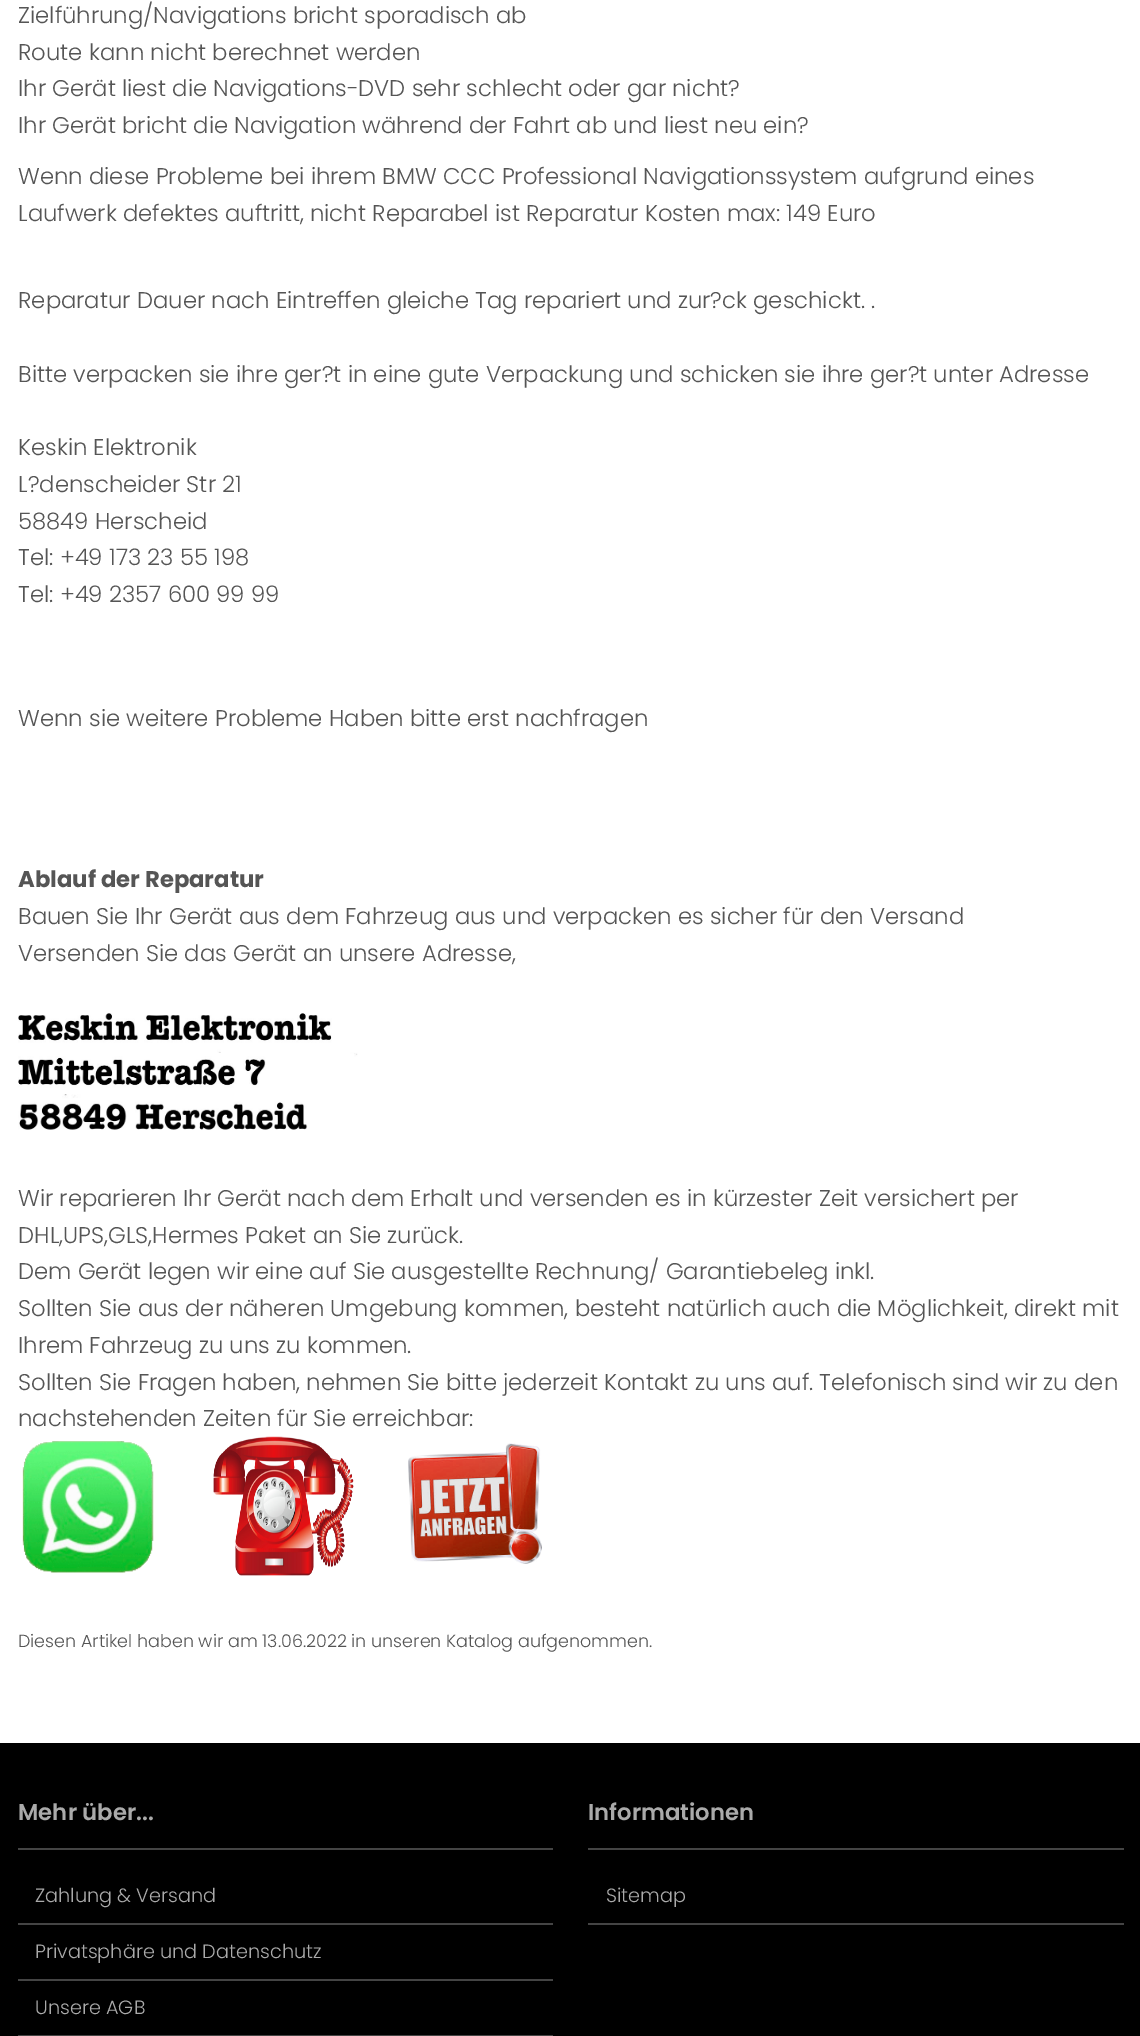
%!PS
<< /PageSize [1140 2036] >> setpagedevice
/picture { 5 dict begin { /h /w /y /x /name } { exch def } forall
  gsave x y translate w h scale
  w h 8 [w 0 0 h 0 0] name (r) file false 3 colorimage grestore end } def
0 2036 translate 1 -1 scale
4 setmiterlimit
1 setgray
0 0 1140 2036 rectfill
/Poppins-Light [22.75 0 0 -22.75 0 0] selectfont
0.333 setgray
18 23 moveto (Zielführung/Navigations bricht sporadisch ab) show
18 60 moveto (Route kann nicht berechnet werden) show
18 96 moveto (Ihr Gerät liest die Navigations-DVD sehr schlecht oder gar nicht?) show
18 133 moveto (Ihr Gerät bricht die Navigation während der Fahrt ab und liest neu ein?) show
18 184 moveto (Wenn diese Probleme bei ihrem BMW CCC Professional Navigationssystem aufgrund eines) show
18 221 moveto (Laufwerk defektes auftritt, nicht Reparabel ist Reparatur Kosten max: 149 Euro) show
18 308 moveto (Reparatur Dauer nach Eintreffen gleiche Tag repariert und zur?ck geschickt. .) show
18 382 moveto (Bitte verpacken sie ihre ger?t in eine gute Verpackung und schicken sie ihre ger?t unter Adresse) show
18 455 moveto (Keskin Elektronik) show
18 492 moveto (L?denscheider Str 21) show
18 529 moveto (58849 Herscheid) show
18 565 moveto (Tel: +49 173 23 55 198) show
18 602 moveto (Tel: +49 2357 600 99 99) show
18 726 moveto (Wenn sie weitere Probleme Haben bitte erst nachfragen) show
/Poppins-Bold [22.75 0 0 -22.75 0 0] selectfont
18 887 moveto (Ablauf der Reparatur) show
/Poppins-Light [22.75 0 0 -22.75 0 0] selectfont
18 924 moveto (Bauen Sie Ihr Gerät aus dem Fahrzeug aus und verpacken es sicher für den Versand) show
18 961 moveto (Versenden Sie das Gerät an unsere Adresse,) show
(img1.rgb) 18 1013 340 117 picture
18 1206 moveto (Wir reparieren Ihr Gerät nach dem Erhalt und versenden es in kürzester Zeit versichert per) show
18 1243 moveto (DHL,UPS,GLS,Hermes Paket an Sie zurück.) show
18 1279 moveto (Dem Gerät legen wir eine auf Sie ausgestellte Rechnung/ Garantiebeleg inkl.) show
18 1316 moveto (Sollten Sie aus der näheren Umgebung kommen, besteht natürlich auch die Möglichkeit, direkt mit) show
18 1353 moveto (Ihrem Fahrzeug zu uns zu kommen.) show
18 1390 moveto (Sollten Sie Fragen haben, nehmen Sie bitte jederzeit Kontakt zu uns auf. Telefonisch sind wir zu den) show
18 1426 moveto (nachstehenden Zeiten für Sie erreichbar:) show
(img2.rgb) 22 1441 132 132 picture
(img3.rgb) 213 1436 141 140 picture
(img4.rgb) 408 1443 134 121 picture
/Poppins-Light [17.5 0 0 -17.5 0 0] selectfont
18 1647 moveto (Diesen Artikel haben wir am 13.06.2022 in unseren Katalog aufgenommen.) show
0 setgray
0 1743 1140 293 rectfill
/Poppins-SemiBold [22.75 0 0 -22.75 0 0] selectfont
0.667 setgray
18 1820 moveto (Mehr über...) show
0.267 setgray
18 1848 535 2 rectfill
18 1923 535 2 rectfill
/Poppins-Light [19.25 0 0 -19.25 0 0] selectfont
0.667 setgray
35 1902 moveto (Zahlung & Versand) show
0.267 setgray
18 1979 535 2 rectfill
0.667 setgray
35 1958 moveto (Privatsphäre und Datenschutz) show
0.267 setgray
18 2035 535 1 rectfill
0.667 setgray
35 2014 moveto (Unsere AGB) show
/Poppins-SemiBold [22.75 0 0 -22.75 0 0] selectfont
588 1820 moveto (Informationen) show
0.267 setgray
588 1848 536 2 rectfill
588 1923 536 2 rectfill
/Poppins-Light [19.25 0 0 -19.25 0 0] selectfont
0.667 setgray
606 1902 moveto (Sitemap) show
showpage
